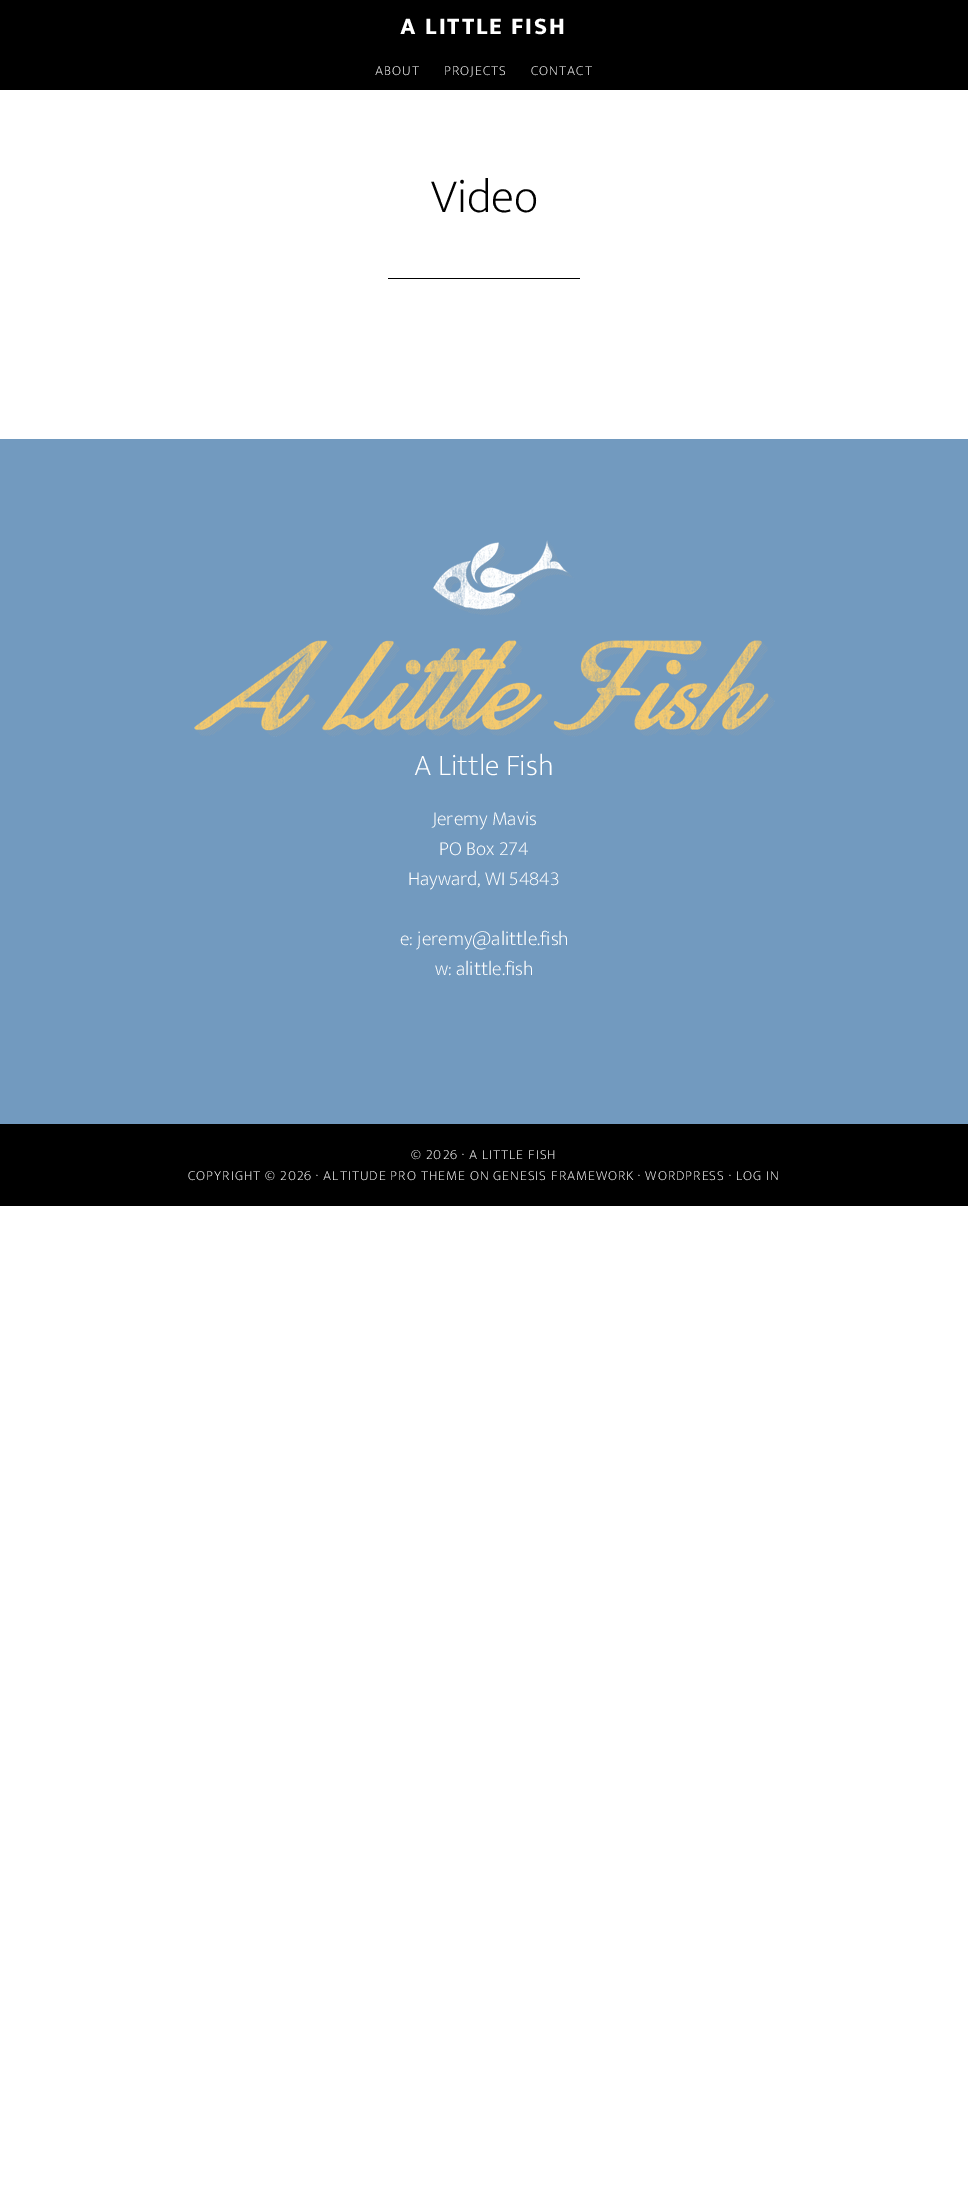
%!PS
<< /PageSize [968 2206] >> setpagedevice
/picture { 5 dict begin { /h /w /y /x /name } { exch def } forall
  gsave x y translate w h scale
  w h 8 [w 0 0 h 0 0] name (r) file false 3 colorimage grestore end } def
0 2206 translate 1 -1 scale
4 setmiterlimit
1 setgray
0 0 968 2206 rectfill
0 setgray
0 0 968 90 rectfill
/EkMukta-ExtraBold [24 0 0 -24 0 0] selectfont
1 setgray
400 34 moveto 2 0 (A LITTLE FISH) ashow
/EkMukta-ExtraLight [14 0 0 -14 0 0] selectfont
375 75 moveto 1 0 (ABOUT) ashow
444 75 moveto 1 0 (PROJECTS) ashow
531 75 moveto 1 0 (CONTACT) ashow
/EkMukta-ExtraLight [48 0 0 -48 0 0] selectfont
0 setgray
431 212 moveto (Video) show
388 278 192 1 rectfill
0.447 0.604 0.749 setrgbcolor
0 439 968 685 rectfill
(img1.rgb) 194 540 581 197 picture
/EkMukta-ExtraLight [30 0 0 -30 0 0] selectfont
1 setgray
414 775 moveto (A Little Fish) show
/EkMukta-ExtraLight [20 0 0 -20 0 0] selectfont
432 825 moveto (Jeremy Mavis) show
439 855 moveto (PO Box 274) show
408 885 moveto (Hayward, WI 54843) show
400 945 moveto (e: jeremy@alittle.fish) show
435 975 moveto (w: alittle.fish) show
0 setgray
0 1124 968 82 rectfill
/EkMukta-ExtraLight [14 0 0 -14 0 0] selectfont
1 setgray
411 1159 moveto 1 0 (© 2026 · A LITTLE FISH) ashow
188 1180 moveto 1 0 (COPYRIGHT © 2026 · ALTITUDE PRO THEME ON GENESIS FRAMEWORK · WORDPRESS · LOG IN) ashow
showpage
